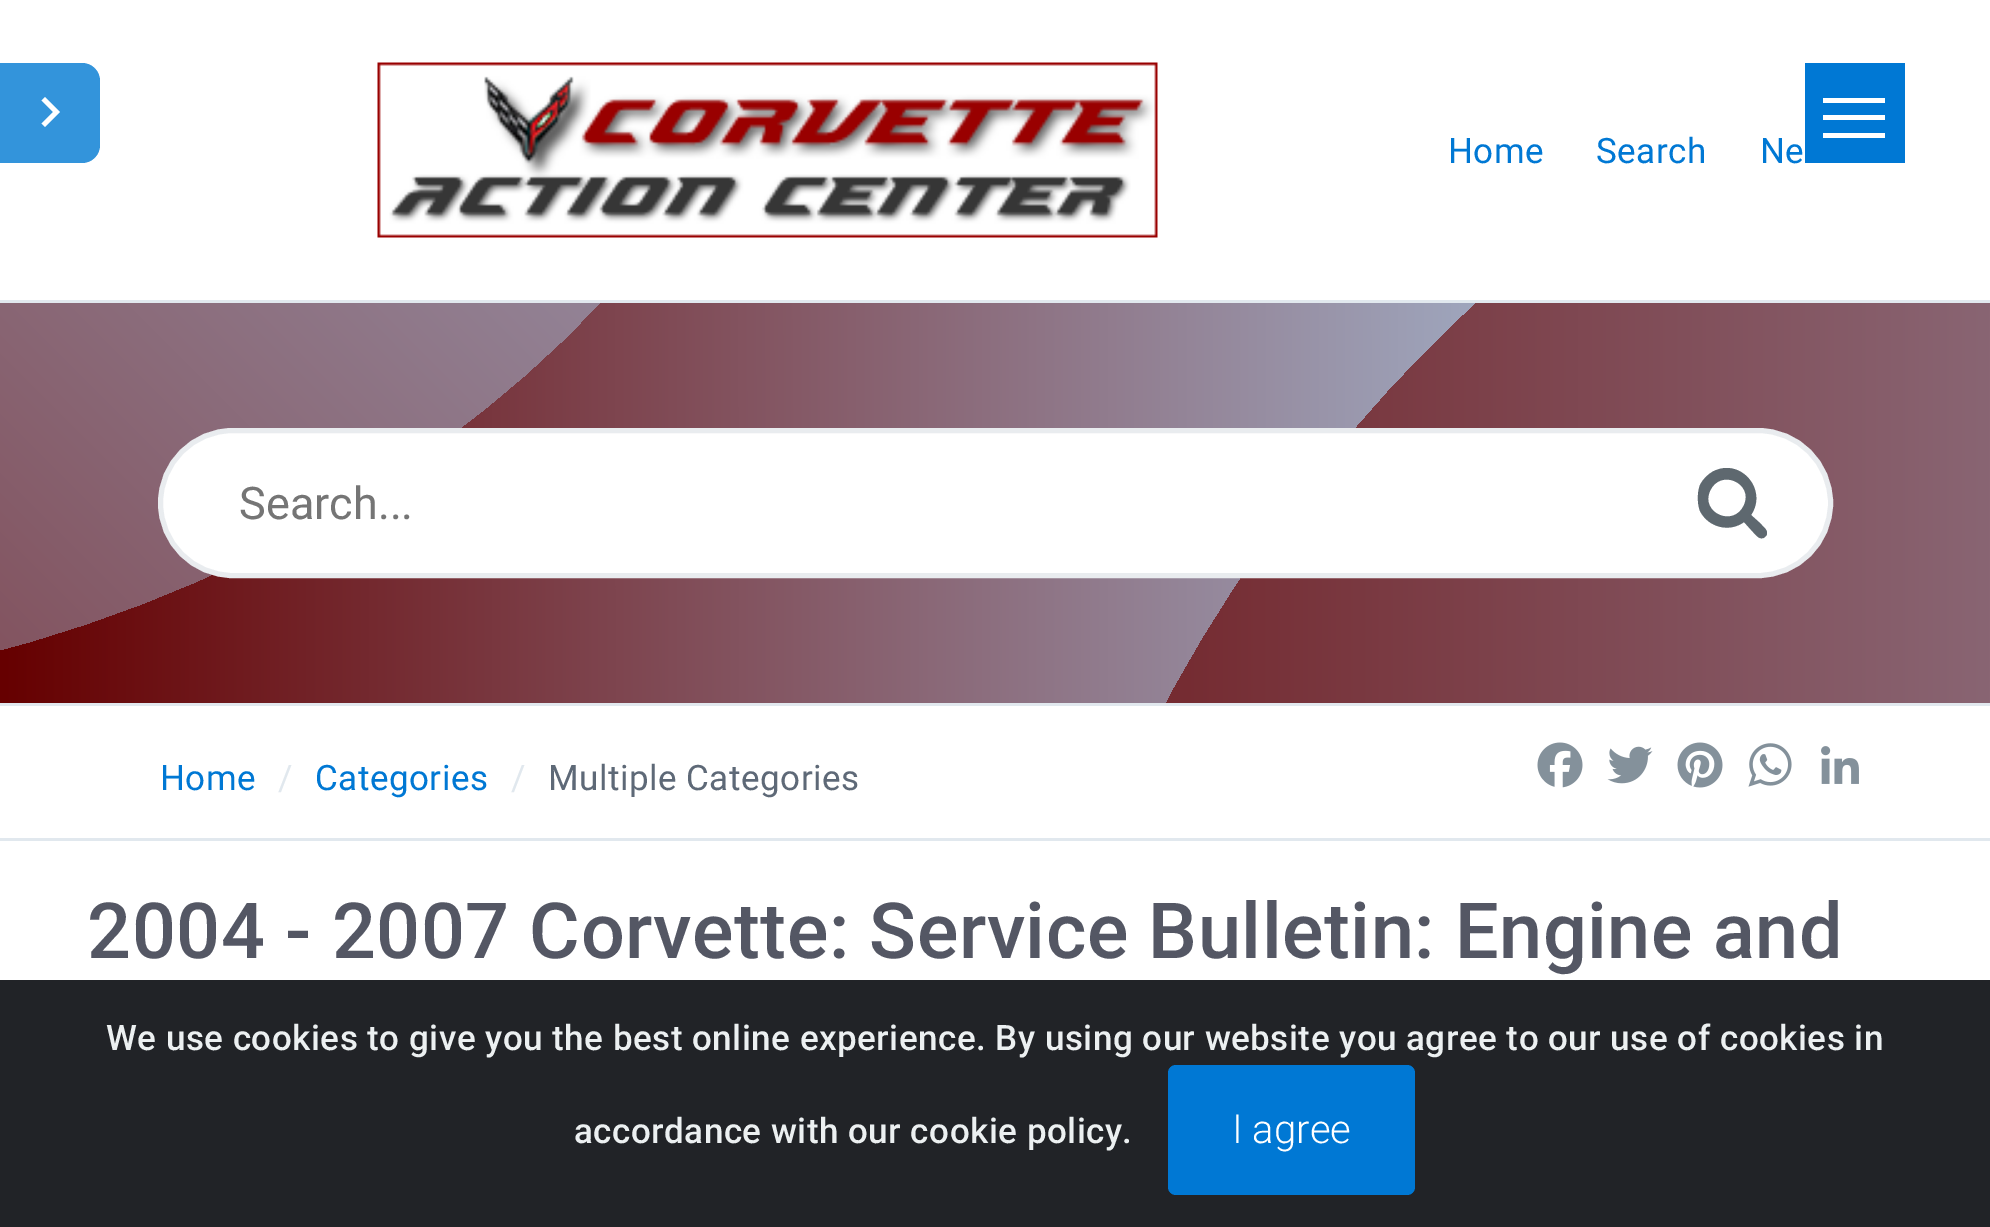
%!PS
<< /PageSize [1990 1227] >> setpagedevice
/roundrect { 5 dict begin { /r /h /w /y /x } { exch def } forall
  x r add y moveto x w add y 2 copy h add r arct x w add y h add x 1 index r arct
  x y h add x y r arct x y 2 copy exch w add exch r arct closepath end } def
/picture { 5 dict begin { /h /w /y /x /name } { exch def } forall
  gsave x y translate w h scale
  w h 8 [w 0 0 h 0 0] name (r) file false 3 colorimage grestore end } def
0 1227 translate 1 -1 scale
4 setmiterlimit
1 setgray
0 0 1990 1227 rectfill
(img1.rgb) 377 62 781 176 picture
/Roboto-Regular [35 0 0 -35 0 0] selectfont
0 0.471 0.831 setrgbcolor
1448 163 moveto 0.5 0 (Home) ashow
1596 163 moveto 0.5 0 (Search) ashow
1760 163 moveto 0.5 0 (Ne) ashow
1805 63 100 100 rectfill
1 setgray
1823 115 62 5 rectfill
1823 98 62 5 rectfill
1823 133 62 5 rectfill
gsave newpath 0 303 moveto 1477 303 lineto 1477 703 lineto 0 703 lineto closepath clip newpath
<< /ShadingType 2 /ColorSpace /DeviceRGB /Coords [0 503 1990 502] /Extend [true true] /Function << /FunctionType 2 /Domain [0 1] /C0 [0.4 0 0] /C1 [0.702 0.875 1] /N 1 >> >> shfill grestore
0.882 0.91 0.933 setrgbcolor
0 300 1990 3 rectfill
0 703 1990 3 rectfill
gsave
0 303 1990 400 rectclip
gsave newpath -400 -1297.5 moveto 290.5 -1297.5 850 -850 850 -297.5 curveto 850 255 290.5 702.5 -400 702.5 curveto -1090.5 702.5 -1650 255 -1650 -297.5 curveto -1650 -850 -1090.5 -1297.5 -400 -1297.5 curveto closepath clip newpath
<< /ShadingType 2 /ColorSpace /DeviceRGB /Coords [-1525 827 725 -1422] /Extend [true true] /Function << /FunctionType 2 /Domain [0 1] /C0 [0.4 0 0] /C1 [0.702 0.875 1] /N 1 >> >> shfill grestore
gsave newpath 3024 169 moveto 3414 559 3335 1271 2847 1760 curveto 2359 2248 1647 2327 1256 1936 curveto 866 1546 945 834 1433 345 curveto 1921 -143 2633 -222 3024 169 curveto closepath clip newpath
<< /ShadingType 2 /ColorSpace /DeviceRGB /Coords [549 1053 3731 1053] /Extend [true true] /Function << /FunctionType 2 /Domain [0 1] /C0 [0.4 0 0] /C1 [0.702 0.875 1] /N 1 >> >> shfill grestore
grestore
1 setgray
160.5 430.5 1670 145 72.5 roundrect gsave fill grestore
0.914 0.925 0.937 setrgbcolor
5 setlinewidth
stroke
/Roboto-Regular [45 0 0 -45 0 0] selectfont
0.459 setgray
239 519 moveto (Search...) show
0.369 0.408 0.435 setrgbcolor
newpath 1744 505 moveto 1754 483 1720 468 1710 491 curveto 1700 513 1734 528 1744 505 curveto closepath 1767 533 moveto 1767 535 1766 536 1765 537 curveto 1760 541 1756 535 1753 532 curveto 1744 522 lineto 1729 533 1708 527 1700 511 curveto 1697 503 1697 493 1700 485 curveto 1703 479 1708 474 1714 471 curveto 1741 458 1768 490 1751 515 curveto 1761 524 lineto 1763 527 1767 529 1767 533 curveto closepath fill
0.882 0.91 0.933 setrgbcolor
0 838 1990 3 rectfill
/Roboto-Regular [35 0 0 -35 0 0] selectfont
0 0.471 0.831 setrgbcolor
160 790 moveto 0.5 0 (Home) ashow
0.882 0.91 0.933 setrgbcolor
278 790 moveto 0.5 0 (/) ashow
0 0.471 0.831 setrgbcolor
315 790 moveto 0.5 0 (Categories) ashow
0.882 0.91 0.933 setrgbcolor
511 790 moveto 0.5 0 (/) ashow
0.369 0.412 0.467 setrgbcolor
548 790 moveto 0.5 0 (Multiple Categories) ashow
(img2.rgb) 1537 742 46 46 picture
(img3.rgb) 1607 746 46 38 picture
(img4.rgb) 1677 742 46 46 picture
(img5.rgb) 1748 743 44 44 picture
(img6.rgb) 1821 746 38 38 picture
0.2 0.58 0.859 setrgbcolor
newpath 0 63 moveto 82 63 lineto 92 63 100 71 100 81 curveto 100 145 lineto 100 155 92 163 82 163 curveto 0 163 lineto closepath fill
1 setgray
newpath 41.5 123.5 moveto 53 112 lineto 41.5 100.5 lineto 45 97 lineto 60 112 lineto 45 127 lineto closepath fill
/Roboto-Medium [77.5 0 0 -77.5 0 0] selectfont
0.329 0.341 0.392 setrgbcolor
87 958 moveto 0.5 0 (2004 - 2007 Corvette: Service Bulletin: Engine and) ashow
0.129 0.137 0.153 setrgbcolor
0 980 1990 247 rectfill
/Roboto-Medium [35 0 0 -35 0 0] selectfont
0.925 0.941 0.945 setrgbcolor
106 1050 moveto 0.5 0 (We use cookies to give you the best online experience. By using our website you agree to our use of cookies in) ashow
574 1143 moveto 0.5 0 (accordance with our cookie policy.) ashow
0 0.471 0.831 setrgbcolor
1168 1065 247 130 8 roundrect fill
/Roboto-Light [40 0 0 -40 0 0] selectfont
1 setgray
1232 1143 moveto (I agree) show
showpage
